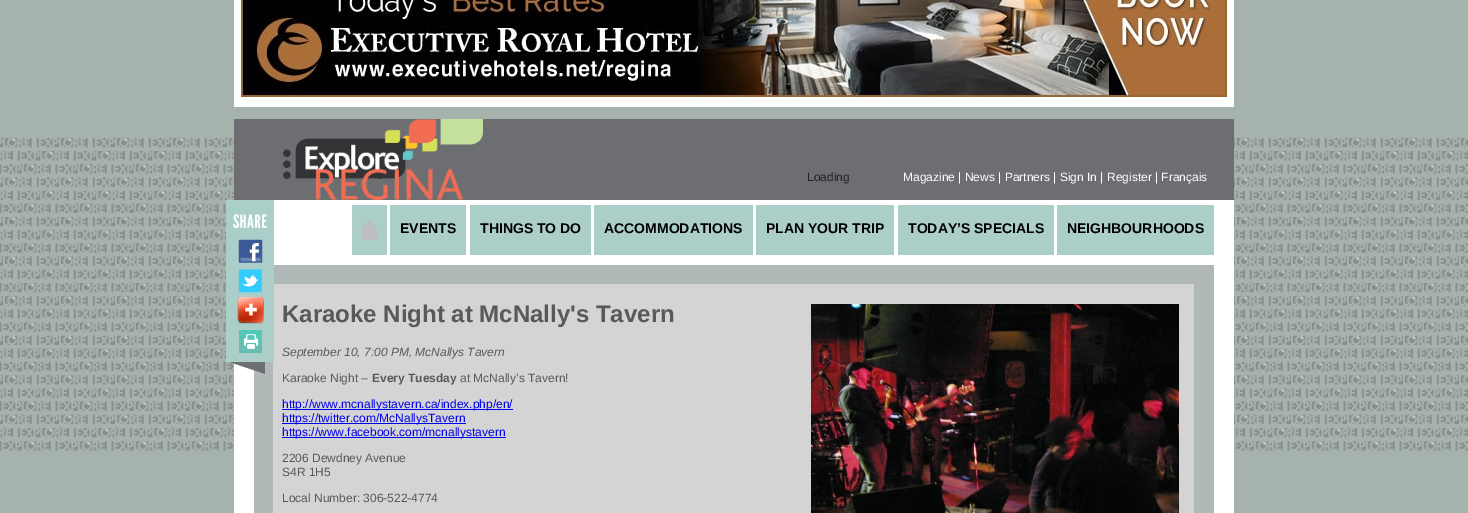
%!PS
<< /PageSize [1468 513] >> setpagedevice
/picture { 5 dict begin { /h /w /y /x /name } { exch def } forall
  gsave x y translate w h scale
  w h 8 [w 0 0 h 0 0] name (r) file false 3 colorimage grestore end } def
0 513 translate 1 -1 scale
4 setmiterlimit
0.651 0.702 0.678 setrgbcolor
0 0 1468 513 rectfill
(img1.rgb) 0 138 1468 313 picture
1 setgray
234 0 1000 107 rectfill
(img2.rgb) 241 0 986 97 picture
0.427 0.431 0.443 setrgbcolor
234 119 1000 81 rectfill
(img3.rgb) 283 119 200 81 picture
/LiberationSans-Regular [12 0 0 -12 0 0] selectfont
0.133 setgray
807 181 moveto (Loading) show
1 setgray
903 181 moveto (Magazine | News | Partners | Sign In | Register | Français) show
234 200 1000 313 rectfill
0.69 0.725 0.722 setrgbcolor
254 265 960 248 rectfill
0.835 0.831 0.831 setrgbcolor
273 284 921 229 rectfill
0.671 0.808 0.788 setrgbcolor
226 200 48 162 rectfill
(img4.rgb) 226 211 42 20 picture
(img5.rgb) 238 239 25 24 picture
(img6.rgb) 238 268 24 25 picture
(img7.rgb) 237 297 27 27 picture
(img8.rgb) 239 330 23 23 picture
(img9.rgb) 229 362 36 12 picture
352 205 35 50 rectfill
(img10.rgb) 362 220 15 20 picture
390 205 76 50 rectfill
/LiberationSans-Bold [14 0 0 -14 0 0] selectfont
0 setgray
400 233 moveto (EVENTS) show
0.671 0.808 0.788 setrgbcolor
470 205 121 50 rectfill
0 setgray
480 233 moveto (THINGS TO DO) show
0.671 0.808 0.788 setrgbcolor
594 205 159 50 rectfill
0 setgray
604 233 moveto (ACCOMMODATIONS) show
0.671 0.808 0.788 setrgbcolor
756 205 138 50 rectfill
0 setgray
766 233 moveto (PLAN YOUR TRIP) show
0.671 0.808 0.788 setrgbcolor
898 205 156 50 rectfill
0 setgray
908 233 moveto (TODAY’S SPECIALS) show
0.671 0.808 0.788 setrgbcolor
1057 205 157 50 rectfill
0 setgray
1067 233 moveto (NEIGHBOURHOODS) show
/LiberationSans-Bold [24 0 0 -24 0 0] selectfont
0.345 0.349 0.357 setrgbcolor
282 322 moveto (Karaoke Night at McNally's Tavern) show
/LiberationSans-Italic [12 0 0 -12 0 0] selectfont
282 356 moveto (September 10, 7:00 PM, McNallys Tavern) show
/LiberationSans-Regular [12 0 0 -12 0 0] selectfont
282 382 moveto (Karaoke Night –) show
/LiberationSans-Bold [12 0 0 -12 0 0] selectfont
372 382 moveto (Every Tuesday) show
/LiberationSans-Regular [12 0 0 -12 0 0] selectfont
460 382 moveto (at McNally’s Tavern!) show
0 0 0.933 setrgbcolor
282 409 231 1 rectfill
282 408 moveto (http://www.mcnallystavern.ca/index.php/en/) show
282 423 184 1 rectfill
282 422 moveto (https://twitter.com/McNallysTavern) show
282 437 224 1 rectfill
282 436 moveto (https://www.facebook.com/mcnallystavern) show
0.345 0.349 0.357 setrgbcolor
282 462 moveto (2206 Dewdney Avenue) show
282 476 moveto (S4R 1H5) show
282 502 moveto (Local Number: 306-522-4774) show
(img11.rgb) 811 304 368 209 picture
showpage
